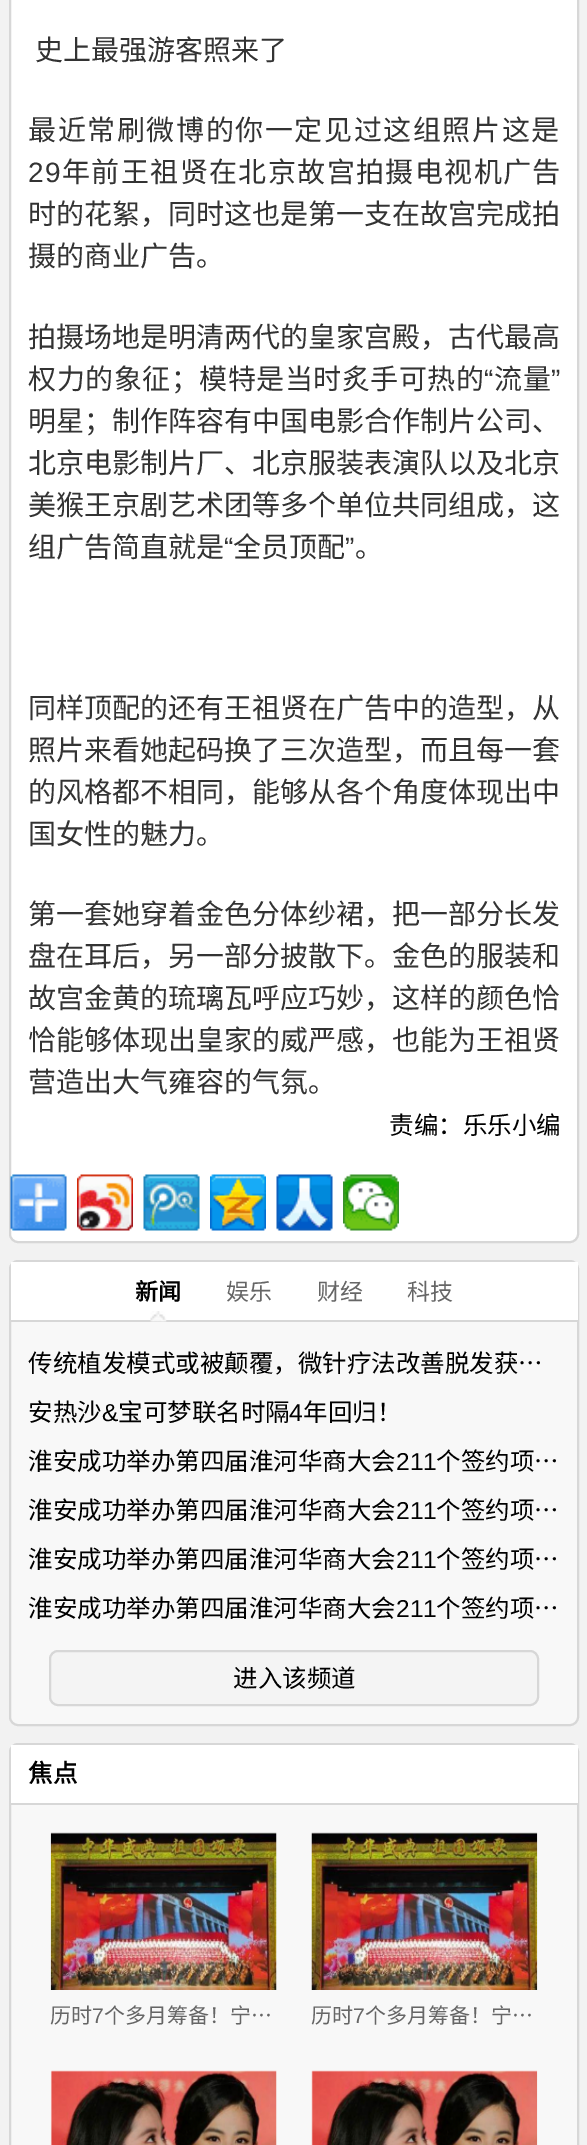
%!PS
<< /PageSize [587 2145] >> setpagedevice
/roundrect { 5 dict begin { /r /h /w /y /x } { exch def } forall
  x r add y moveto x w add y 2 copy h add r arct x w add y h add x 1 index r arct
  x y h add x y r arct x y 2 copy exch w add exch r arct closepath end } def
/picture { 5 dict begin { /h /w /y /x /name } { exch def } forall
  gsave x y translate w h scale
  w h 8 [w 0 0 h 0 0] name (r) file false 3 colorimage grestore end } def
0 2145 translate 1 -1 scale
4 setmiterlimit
0.949 setgray
0 0 587 2145 rectfill
1 setgray
10 -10 568 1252 8 roundrect gsave fill grestore
0.843 setgray
2 setlinewidth
stroke
/NotoSansCJKSC-Regular [28 0 0 -28 0 0] selectfont
0.2 setgray
35 60 moveto (史上最强游客照来了) show
28 140 moveto 1.6 0 (最近常刷微博的你一定见过这组照片这是) ashow
/LiberationSans-Regular [28 0 0 -28 0 0] selectfont
28 182 moveto 1.4 0 (29) ashow
/NotoSansCJKSC-Regular [28 0 0 -28 0 0] selectfont
62 182 moveto 1.4 0 (年前王祖贤在北京故宫拍摄电视机广告) ashow
28 224 moveto (时的花絮，同时这也是第一支在故宫完成拍) show
28 266 moveto (摄的商业广告。) show
28 347 moveto (拍摄场地是明清两代的皇家宫殿，古代最高) show
28 389 moveto 0.5 0 (权力的象征；模特是当时炙手可热的) ashow
/LiberationSans-Regular [28 0 0 -28 0 0] selectfont
484 389 moveto 0.5 0 (“) ashow
/NotoSansCJKSC-Regular [28 0 0 -28 0 0] selectfont
494 389 moveto 0.5 0 (流量) ashow
/LiberationSans-Regular [28 0 0 -28 0 0] selectfont
551 389 moveto 0.5 0 (”) ashow
/NotoSansCJKSC-Regular [28 0 0 -28 0 0] selectfont
28 431 moveto (明星；制作阵容有中国电影合作制片公司、) show
28 473 moveto (北京电影制片厂、北京服装表演队以及北京) show
28 515 moveto (美猴王京剧艺术团等多个单位共同组成，这) show
28 557 moveto (组广告简直就是) show
/LiberationSans-Regular [28 0 0 -28 0 0] selectfont
224 557 moveto (“) show
/NotoSansCJKSC-Regular [28 0 0 -28 0 0] selectfont
233 557 moveto (全员顶配) show
/LiberationSans-Regular [28 0 0 -28 0 0] selectfont
345 557 moveto (”) show
/NotoSansCJKSC-Regular [28 0 0 -28 0 0] selectfont
355 557 moveto (。) show
28 718 moveto (同样顶配的还有王祖贤在广告中的造型，从) show
28 760 moveto (照片来看她起码换了三次造型，而且每一套) show
28 802 moveto (的风格都不相同，能够从各个角度体现出中) show
28 844 moveto (国女性的魅力。) show
28 924 moveto (第一套她穿着金色分体纱裙，把一部分长发) show
28 966 moveto (盘在耳后，另一部分披散下。金色的服装和) show
28 1008 moveto (故宫金黄的琉璃瓦呼应巧妙，这样的颜色恰) show
28 1050 moveto (恰能够体现出皇家的威严感，也能为王祖贤) show
28 1092 moveto (营造出大气雍容的气氛。) show
/NotoSansCJKSC-Regular [24.5 0 0 -24.5 0 0] selectfont
0 setgray
389 1134 moveto (责编：乐乐小编) show
(img1.rgb) 10 1174 57 57 picture
(img2.rgb) 77 1174 56 57 picture
(img3.rgb) 143 1174 57 57 picture
(img4.rgb) 210 1174 56 57 picture
(img5.rgb) 276 1174 57 57 picture
(img6.rgb) 343 1174 56 57 picture
0.973 setgray
10 1261 568 464 8 roundrect gsave fill grestore
0.843 setgray
stroke
1 setgray
11 1262 567 58 rectfill
0.843 setgray
11 1320 567 2 rectfill
(img7.rgb) 150 1311 17 11 picture
/NotoSansCJKSC-Bold [23 0 0 -23 0 0] selectfont
0 setgray
135 1300 moveto (新闻) show
/NotoSansCJKSC-Regular [23 0 0 -23 0 0] selectfont
0.4 setgray
226 1300 moveto (娱乐) show
317 1300 moveto (财经) show
407 1300 moveto (科技) show
/NotoSansCJKSC-Regular [24.5 0 0 -24.5 0 0] selectfont
0 setgray
28 1372 moveto (传统植发模式或被颠覆，微针疗法改善脱发获…) show
28 1421 moveto (安热沙) show
/LiberationSans-Regular [24.5 0 0 -24.5 0 0] selectfont
102 1421 moveto (&) show
/NotoSansCJKSC-Regular [24.5 0 0 -24.5 0 0] selectfont
118 1421 moveto (宝可梦联名时隔) show
/LiberationSans-Regular [24.5 0 0 -24.5 0 0] selectfont
289 1421 moveto (4) show
/NotoSansCJKSC-Regular [24.5 0 0 -24.5 0 0] selectfont
303 1421 moveto (年回归！) show
28 1470 moveto (淮安成功举办第四届淮河华商大会) show
/LiberationSans-Regular [24.5 0 0 -24.5 0 0] selectfont
396 1470 moveto (211) show
/NotoSansCJKSC-Regular [24.5 0 0 -24.5 0 0] selectfont
436 1470 moveto 1 0 32 (个签约项…) widthshow
28 1519 moveto (淮安成功举办第四届淮河华商大会) show
/LiberationSans-Regular [24.5 0 0 -24.5 0 0] selectfont
396 1519 moveto (211) show
/NotoSansCJKSC-Regular [24.5 0 0 -24.5 0 0] selectfont
436 1519 moveto 1 0 32 (个签约项…) widthshow
28 1568 moveto (淮安成功举办第四届淮河华商大会) show
/LiberationSans-Regular [24.5 0 0 -24.5 0 0] selectfont
396 1568 moveto (211) show
/NotoSansCJKSC-Regular [24.5 0 0 -24.5 0 0] selectfont
436 1568 moveto 1 0 32 (个签约项…) widthshow
28 1617 moveto (淮安成功举办第四届淮河华商大会) show
/LiberationSans-Regular [24.5 0 0 -24.5 0 0] selectfont
396 1617 moveto (211) show
/NotoSansCJKSC-Regular [24.5 0 0 -24.5 0 0] selectfont
436 1617 moveto 1 0 32 (个签约项…) widthshow
0.957 setgray
50 1651 488 54 8 roundrect gsave fill grestore
0.843 setgray
stroke
0 setgray
233 1687 moveto (进入该频道) show
0.973 setgray
10 1744 568 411 8 roundrect gsave fill grestore
0.843 setgray
stroke
1 setgray
11 1745 567 58 rectfill
0.843 setgray
11 1803 567 2 rectfill
/NotoSansCJKSC-Bold [24.5 0 0 -24.5 0 0] selectfont
0 setgray
28 1782 moveto (焦点) show
(img8.rgb) 50 1832 227 158 picture
/NotoSansCJKSC-Regular [21 0 0 -21 0 0] selectfont
0.4 setgray
50 2023 moveto (历时) show
/LiberationSans-Regular [21 0 0 -21 0 0] selectfont
92 2023 moveto (7) show
/NotoSansCJKSC-Regular [21 0 0 -21 0 0] selectfont
104 2023 moveto (个多月筹备！宁…) show
(img9.rgb) 311 1832 227 158 picture
311 2023 moveto (历时) show
/LiberationSans-Regular [21 0 0 -21 0 0] selectfont
353 2023 moveto (7) show
/NotoSansCJKSC-Regular [21 0 0 -21 0 0] selectfont
365 2023 moveto (个多月筹备！宁…) show
(img10.rgb) 50 2070 227 75 picture
(img11.rgb) 311 2070 227 75 picture
showpage
